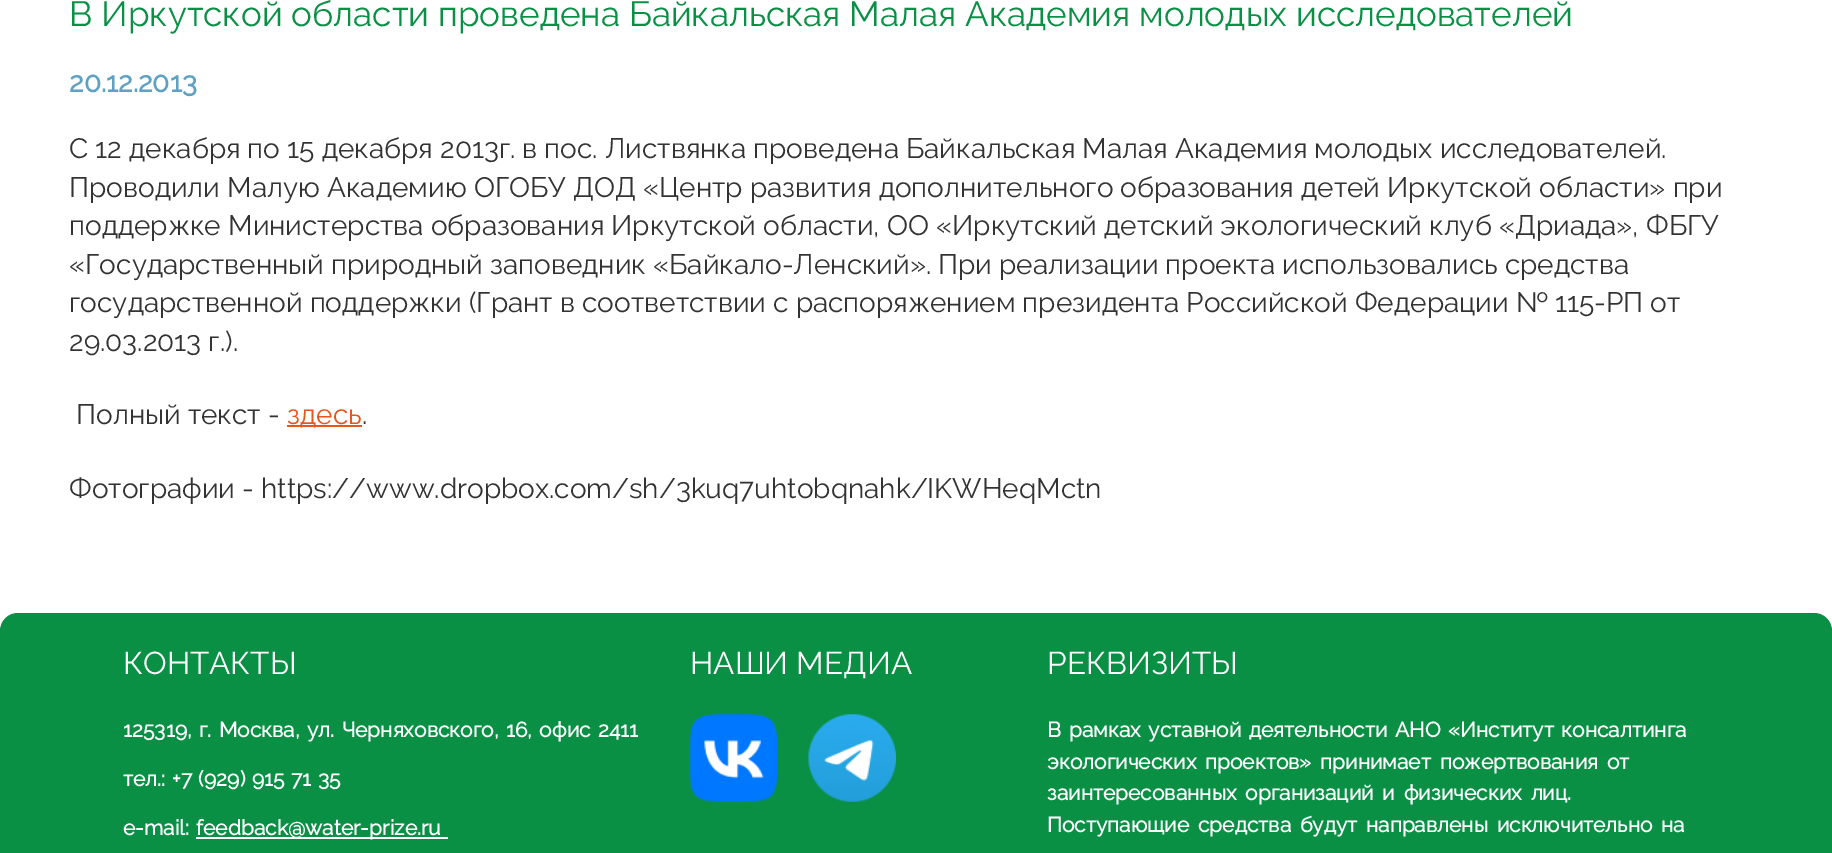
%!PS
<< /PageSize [1832 853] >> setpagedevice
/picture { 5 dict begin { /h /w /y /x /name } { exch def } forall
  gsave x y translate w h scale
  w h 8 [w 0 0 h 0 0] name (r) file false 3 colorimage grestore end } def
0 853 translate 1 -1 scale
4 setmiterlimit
1 setgray
0 0 1832 853 rectfill
/Raleway-Regular [35 0 0 -35 0 0] selectfont
0.035 0.565 0.267 setrgbcolor
69 26 moveto (В Иркутской области проведена Байкальская Малая Академия молодых исследователей) show
/Raleway-Bold [28 0 0 -28 0 0] selectfont
0.369 0.631 0.761 setrgbcolor
69 92 moveto (20.12.2013) show
/Raleway-Regular [28 0 0 -28 0 0] selectfont
0.2 setgray
69 158 moveto (С 12 декабря по 15 декабря 2013г. в пос. Листвянка проведена Байкальская Малая Академия молодых исследователей.) show
69 197 moveto (Проводили Малую Академию ОГОБУ ДОД «Центр развития дополнительного образования детей Иркутской области» при) show
69 235 moveto (поддержке Министерства образования Иркутской области, ОО «Иркутский детский экологический клуб «Дриада», ФБГУ) show
69 274 moveto («Государственный природный заповедник «Байкало-Ленский». При реализации проекта использовались средства) show
69 312 moveto (государственной поддержки \(Грант в соответствии с распоряжением президента Российской Федерации № 115-РП от) show
69 351 moveto (29.03.2013 г.\).) show
76 424 moveto (Полный текст -) show
0.902 0.341 0.114 setrgbcolor
287 425 75 2 rectfill
287 424 moveto (здесь) show
0.2 setgray
362 424 moveto (.) show
69 498 moveto (Фотографии - https://www.dropbox.com/sh/3kuq7uhtobqnahk/IKWHeqMctn) show
0.035 0.565 0.267 setrgbcolor
newpath 18 613 moveto 1814 613 lineto 1824 613 1832 621 1832 631 curveto 1832 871 lineto 0 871 lineto 0 631 lineto 0 621 8 613 18 613 curveto closepath fill
/Raleway-Regular [31.5 0 0 -31.5 0 0] selectfont
1 setgray
123 674 moveto (КОНТАКТЫ) show
/Raleway-Bold [21 0 0 -21 0 0] selectfont
123 737 moveto 2 0 32 (125319, г. Москва, ул. Черняховского, 16, офис 2411) widthshow
123 786 moveto 1.25 0 32 (тел.: +7 \(929\) 915 71 35) widthshow
123 835 moveto (e-mail:) show
196 837 252 2 rectfill
196 835 moveto (feedback@water-prize.ru) show
/Raleway-Regular [31.5 0 0 -31.5 0 0] selectfont
690 674 moveto (НАШИ МЕДИА) show
(img1.rgb) 689 714 88 88 picture
(img2.rgb) 808 714 88 88 picture
1047 674 moveto (РЕКВИЗИТЫ) show
/Raleway-Bold [21 0 0 -21 0 0] selectfont
1047 737 moveto 2.25 0 32 (В рамках уставной деятельности АНО «Институт консалтинга) widthshow
1047 769 moveto 3.5 0 32 (экологических проектов» принимает пожертвования от) widthshow
1047 800 moveto 3.5 0 32 (заинтересованных организаций и физических лиц.) widthshow
1047 832 moveto 3.25 0 32 (Поступающие средства будут направлены исключительно на) widthshow
showpage
